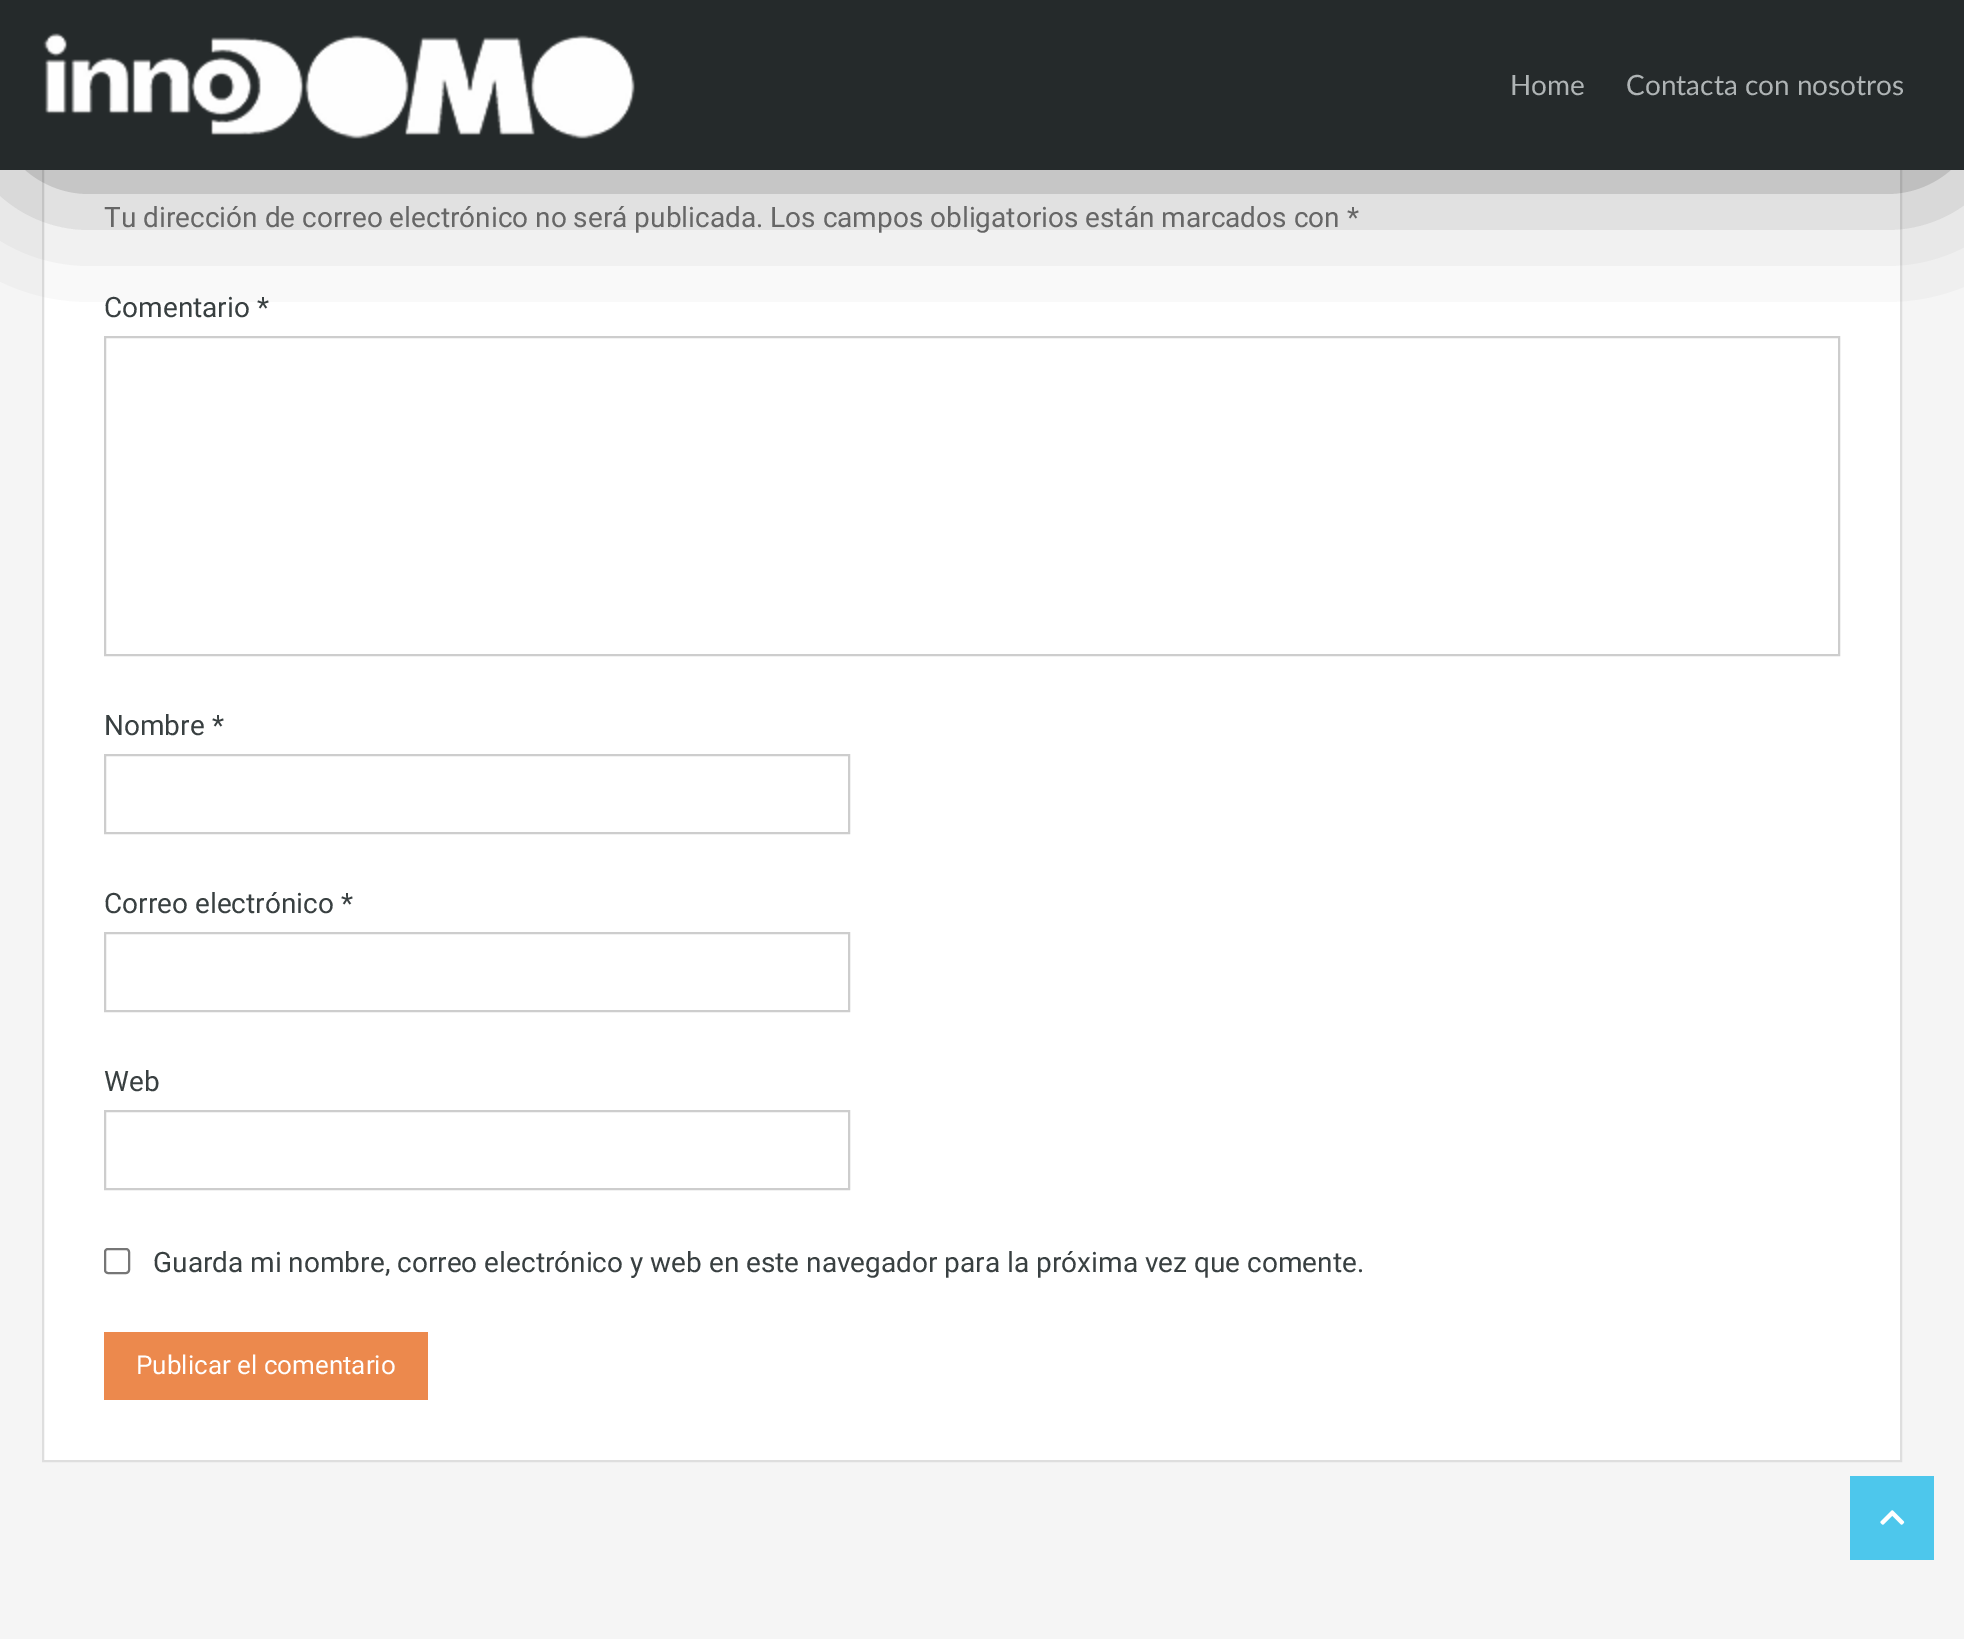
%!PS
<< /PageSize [1964 1639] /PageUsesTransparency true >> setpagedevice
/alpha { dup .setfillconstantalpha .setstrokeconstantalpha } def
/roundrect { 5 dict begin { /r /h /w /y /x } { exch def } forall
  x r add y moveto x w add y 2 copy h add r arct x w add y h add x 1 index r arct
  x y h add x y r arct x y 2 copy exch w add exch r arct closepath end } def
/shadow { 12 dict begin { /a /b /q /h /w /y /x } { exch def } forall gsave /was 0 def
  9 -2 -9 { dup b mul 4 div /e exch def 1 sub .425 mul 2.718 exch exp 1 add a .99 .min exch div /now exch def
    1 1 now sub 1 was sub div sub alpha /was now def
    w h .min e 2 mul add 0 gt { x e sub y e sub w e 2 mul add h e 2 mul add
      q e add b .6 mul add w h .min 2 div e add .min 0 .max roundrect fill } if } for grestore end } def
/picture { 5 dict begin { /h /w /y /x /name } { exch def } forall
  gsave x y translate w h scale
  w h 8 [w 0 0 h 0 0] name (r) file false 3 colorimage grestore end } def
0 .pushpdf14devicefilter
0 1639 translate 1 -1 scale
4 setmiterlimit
0.961 setgray
0 0 1964 1639 rectfill
1 setgray
44 170 1856 1290 rectfill
0.871 setgray
2 setlinewidth
43 -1 1858 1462 rectstroke
0.804 setgray
105 337 1734 318 rectstroke
0 setgray
46 50 1884 90 0 72 0.75 shadow
0.145 0.165 0.169 setrgbcolor
0 0 1964 170 rectfill
(img1.rgb) 43 33 592 106 picture
/Lato-Regular [28 0 0 -28 0 0] selectfont
0.686 0.706 0.71 setrgbcolor
1510 95 moveto (Home) show
1626 95 moveto (Contacta con nosotros) show
/Roboto-Regular [28 0 0 -28 0 0] selectfont
0.4 setgray
104 227 moveto (Tu dirección de correo electrónico no será publicada. Los campos obligatorios están marcados con *) show
0.224 0.251 0.255 setrgbcolor
104 317 moveto (Comentario *) show
104 735 moveto (Nombre *) show
0.804 setgray
105 755 744 78 rectstroke
0.224 0.251 0.255 setrgbcolor
104 913 moveto (Correo electrónico *) show
0.804 setgray
105 933 744 78 rectstroke
0.224 0.251 0.255 setrgbcolor
104 1091 moveto (Web) show
0.804 setgray
105 1111 744 78 rectstroke
0.463 setgray
105 1249 24 24 3 roundrect stroke
0.224 0.251 0.255 setrgbcolor
153 1272 moveto (Guarda mi nombre, correo electrónico y web en este navegador para la próxima vez que comente.) show
0.925 0.537 0.302 setrgbcolor
104 1332 324 68 rectfill
/Roboto-Regular [26 0 0 -26 0 0] selectfont
1 setgray
136 1374 moveto (Publicar el comentario) show
0.302 0.78 0.925 setrgbcolor
1850 1476 84 84 rectfill
(img2.rgb) 1880 1510 25 15 picture
.poppdf14devicefilter showpage
